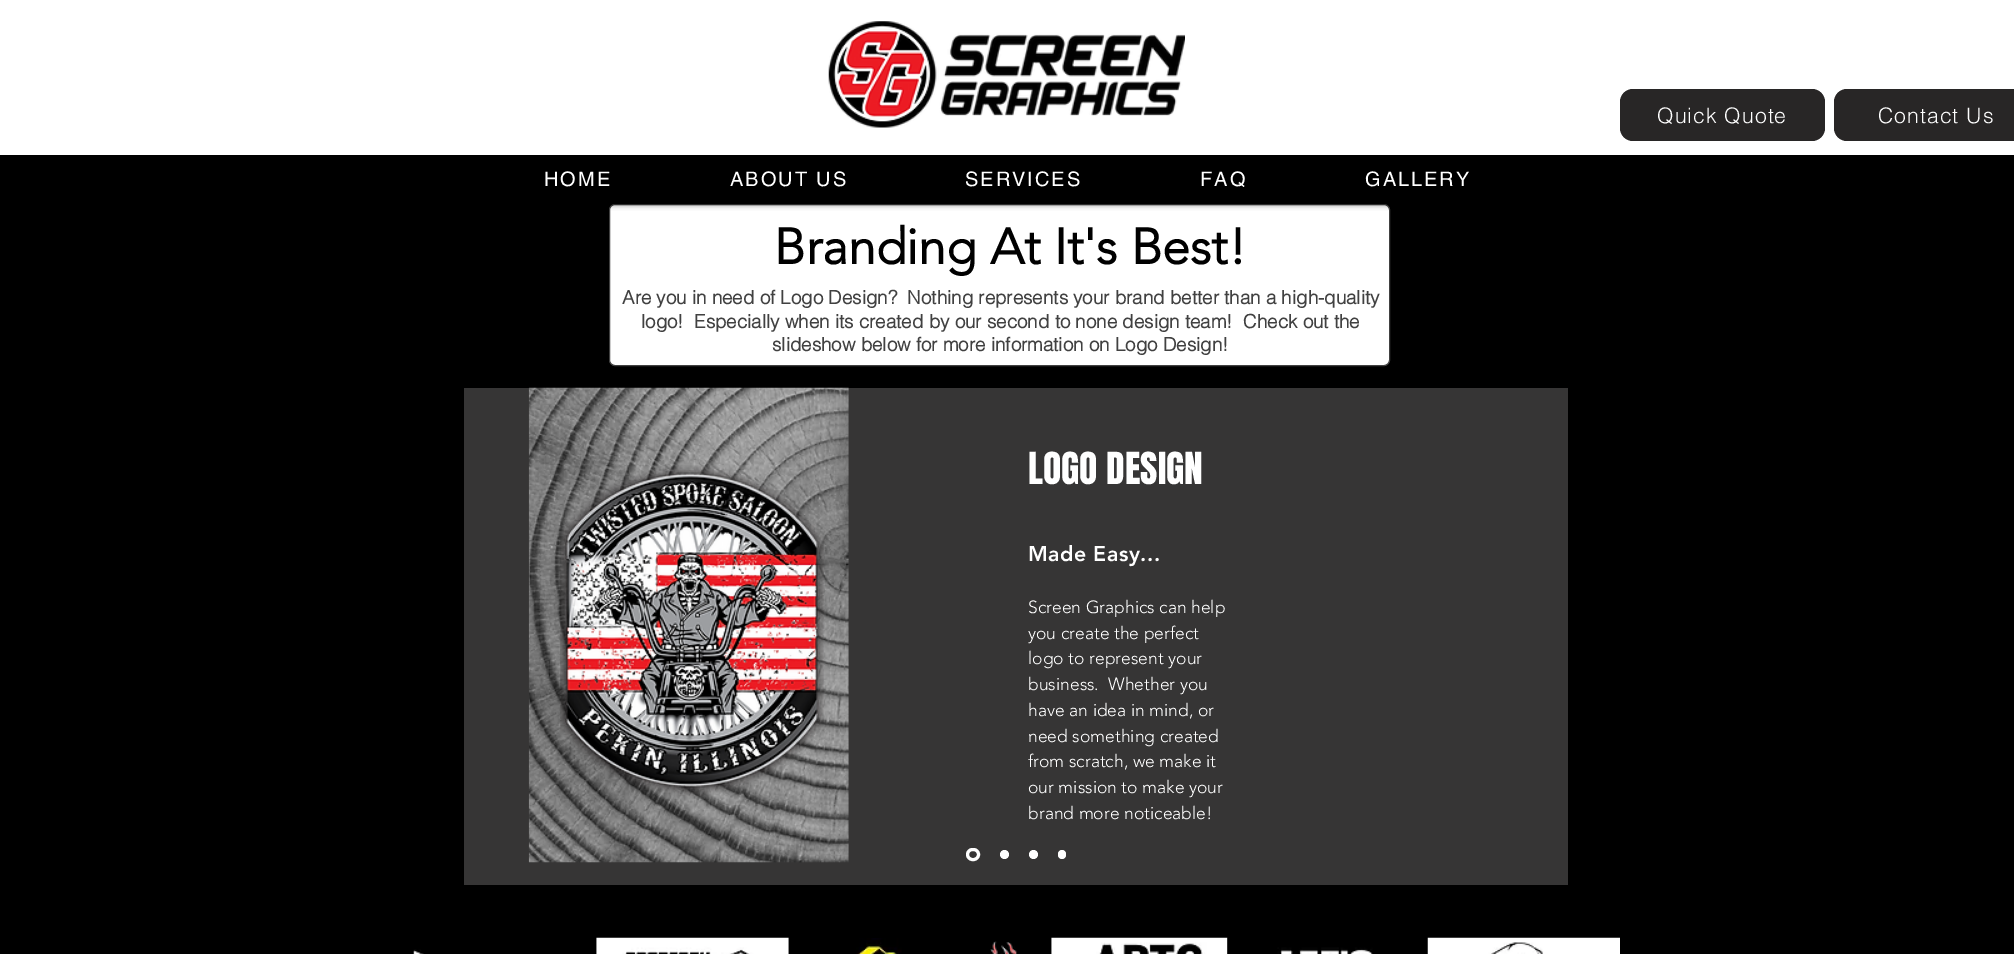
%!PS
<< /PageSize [2014 954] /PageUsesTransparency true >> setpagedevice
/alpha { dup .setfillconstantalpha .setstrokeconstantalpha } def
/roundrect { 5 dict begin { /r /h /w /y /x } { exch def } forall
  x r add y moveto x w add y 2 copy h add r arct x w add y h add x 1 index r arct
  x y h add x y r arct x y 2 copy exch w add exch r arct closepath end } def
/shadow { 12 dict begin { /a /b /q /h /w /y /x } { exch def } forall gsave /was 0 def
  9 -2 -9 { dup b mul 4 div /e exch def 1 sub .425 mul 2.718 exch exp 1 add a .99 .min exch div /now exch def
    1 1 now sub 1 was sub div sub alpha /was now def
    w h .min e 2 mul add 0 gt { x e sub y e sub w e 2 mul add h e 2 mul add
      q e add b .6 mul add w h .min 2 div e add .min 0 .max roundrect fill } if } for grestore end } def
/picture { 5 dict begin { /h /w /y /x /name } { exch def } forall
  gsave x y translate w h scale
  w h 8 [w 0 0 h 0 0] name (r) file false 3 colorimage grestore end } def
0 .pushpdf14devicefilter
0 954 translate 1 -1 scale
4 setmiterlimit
0 setgray
0 0 2014 954 rectfill
1 setgray
609.5 204.5 780 161 5.5 roundrect gsave fill grestore
0.255 setgray
stroke
0 setgray
0 0 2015 204 0 3 0.7 shadow
1 setgray
0 0 2014 155 rectfill
(img1.rgb) 828 21 357 107 picture
0.157 0.149 0.149 setrgbcolor
1620 89 205 52 13 roundrect fill
/helvetica-Light [21.25 0 0 -21.25 0 0] selectfont
1 setgray
1657 123 moveto 1 0 (Quick Quote) ashow
0.157 0.149 0.149 setrgbcolor
1834 89 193 52 13 roundrect fill
1 setgray
1878 123 moveto 1 0 (Contact Us) ashow
/helvetica-Regular [20 0 0 -20 0 0] selectfont
544 186 moveto 2 0 (HOME) ashow
730 186 moveto 2 0 (ABOUT US) ashow
965 186 moveto 2 0 (SERVICES) ashow
1200 186 moveto 2 0 (FAQ) ashow
1365 186 moveto 2 0 (GALLERY) ashow
/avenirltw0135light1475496-Bold [50 0 0 -50 0 0] selectfont
0 setgray
774 264 moveto (Branding At It's Best!) show
/helvetica-Bold [18.75 0 0 -18.75 0 0] selectfont
0.255 setgray
622 304 moveto (Are you in need of Logo Design?  Nothing represents your brand better than a high-quality) show
641 328 moveto (logo!  Especially when its created by our second to none design team!  Check out the) show
772 351 moveto (slideshow below for more information on Logo Design!) show
0.212 0.208 0.208 setrgbcolor
464 388 1104 497 rectfill
(img2.rgb) 528 387 321 476 picture
/Anton-Regular [37.5 0 0 -37.5 0 0] selectfont
1 setgray
1028 484 moveto (LOGO DESIGN) show
(img3.rgb) 560 465 264 331 picture
/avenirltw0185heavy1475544-Black [21.25 0 0 -21.25 0 0] selectfont
1028 561 moveto 0.5 0 (Made Easy...) ashow
/avenirltw0135light1475496-Light [17.5 0 0 -17.5 0 0] selectfont
1028 613 moveto (Screen Graphics can help) show
1028 639 moveto (you create the perfect) show
1028 664 moveto (logo to represent your) show
1028 690 moveto (business.  Whether you) show
1028 716 moveto (have an idea in mind, or) show
1028 742 moveto (need something created) show
1028 767 moveto (from scratch, we make it) show
1028 793 moveto (our mission to make your) show
1028 819 moveto (brand more noticeable!) show
3 setlinewidth
967.5 849.5 11 10 5 roundrect stroke
newpath 1004.5 854.5 4.5 0 360 arc closepath fill
newpath 1033.5 854.5 4.5 0 360 arc closepath fill
1058 850 8 9 4 roundrect fill
(img4.rgb) 413 949 11 5 picture
(img5.rgb) 596 937 193 17 picture
(img6.rgb) 856 938 46 16 picture
(img7.rgb) 990 941 27 13 picture
(img8.rgb) 1051 937 177 17 picture
(img9.rgb) 1227 938 146 16 picture
(img10.rgb) 1427 937 193 17 picture
.poppdf14devicefilter showpage
